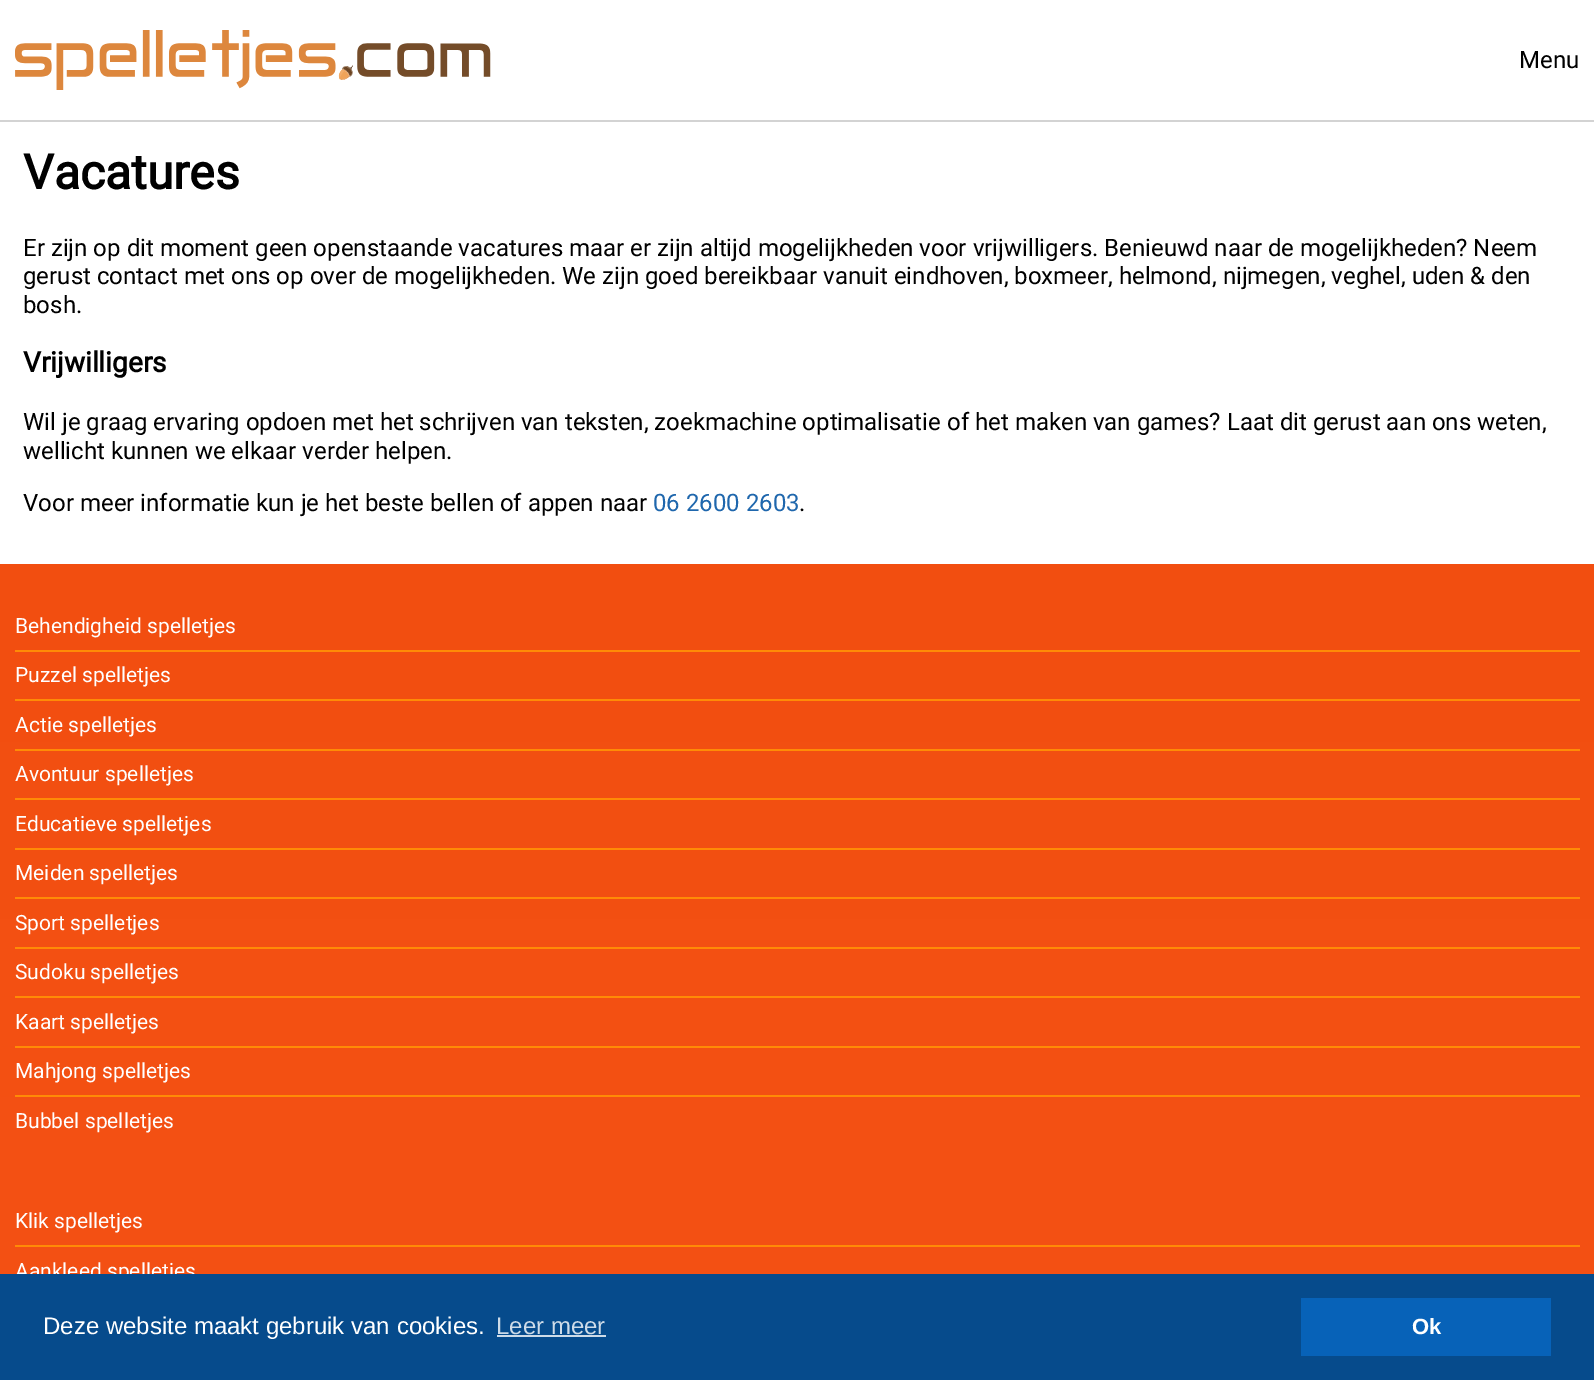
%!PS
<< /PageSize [1594 1380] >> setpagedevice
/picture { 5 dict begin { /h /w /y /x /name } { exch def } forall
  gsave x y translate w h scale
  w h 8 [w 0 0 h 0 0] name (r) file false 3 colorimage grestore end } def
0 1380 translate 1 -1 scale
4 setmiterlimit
1 setgray
0 0 1594 1380 rectfill
0.827 setgray
0 120 1594 2 rectfill
(img1.rgb) 15 30 476 60 picture
/Roboto-Regular [24 0 0 -24 0 0] selectfont
0 setgray
1519 68 moveto (Menu) show
/Roboto-Bold [48 0 0 -48 0 0] selectfont
23 189 moveto (Vacatures) show
/Roboto-Regular [24 0 0 -24 0 0] selectfont
23 256 moveto (Er zijn op dit moment geen openstaande vacatures maar er zijn altijd mogelijkheden voor vrijwilligers. Benieuwd naar de mogelijkheden? Neem) show
23 284 moveto (gerust contact met ons op over de mogelijkheden. We zijn goed bereikbaar vanuit eindhoven, boxmeer, helmond, nijmegen, veghel, uden & den) show
23 313 moveto (bosh.) show
/Roboto-Bold [28 0 0 -28 0 0] selectfont
23 372 moveto (Vrijwilligers) show
/Roboto-Regular [24 0 0 -24 0 0] selectfont
23 430 moveto (Wil je graag ervaring opdoen met het schrijven van teksten, zoekmachine optimalisatie of het maken van games? Laat dit gerust aan ons weten,) show
23 459 moveto (wellicht kunnen we elkaar verder helpen.) show
23 511 moveto (Voor meer informatie kun je het beste bellen of appen naar) show
0.122 0.404 0.678 setrgbcolor
653 511 moveto (06 2600 2603) show
0 setgray
799 511 moveto (.) show
gsave newpath 0 564 moveto 1594 564 lineto 1594 1274 lineto 0 1274 lineto closepath clip newpath
<< /ShadingType 2 /ColorSpace /DeviceRGB /Coords [797 564 797 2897] /Extend [true true] /Function << /FunctionType 2 /Domain [0 1] /C0 [0.949 0.306 0.063] /C1 [0.976 0.349 0.114] /N 1 >> >> shfill grestore
1 0.545 0.024 setrgbcolor
15 650 1565 2 rectfill
/Roboto-Regular [21 0 0 -21 0 0] selectfont
1 setgray
15 633 moveto (Behendigheid spelletjes) show
1 0.545 0.024 setrgbcolor
15 699 1565 2 rectfill
1 setgray
15 682 moveto (Puzzel spelletjes) show
1 0.545 0.024 setrgbcolor
15 749 1565 2 rectfill
1 setgray
15 732 moveto (Actie spelletjes) show
1 0.545 0.024 setrgbcolor
15 798 1565 2 rectfill
1 setgray
15 781 moveto (Avontuur spelletjes) show
1 0.545 0.024 setrgbcolor
15 848 1565 2 rectfill
1 setgray
15 831 moveto (Educatieve spelletjes) show
1 0.545 0.024 setrgbcolor
15 897 1565 2 rectfill
1 setgray
15 880 moveto (Meiden spelletjes) show
1 0.545 0.024 setrgbcolor
15 947 1565 2 rectfill
1 setgray
15 930 moveto (Sport spelletjes) show
1 0.545 0.024 setrgbcolor
15 996 1565 2 rectfill
1 setgray
15 979 moveto (Sudoku spelletjes) show
1 0.545 0.024 setrgbcolor
15 1046 1565 2 rectfill
1 setgray
15 1029 moveto (Kaart spelletjes) show
1 0.545 0.024 setrgbcolor
15 1095 1565 2 rectfill
1 setgray
15 1078 moveto (Mahjong spelletjes) show
15 1128 moveto (Bubbel spelletjes) show
1 0.545 0.024 setrgbcolor
15 1245 1565 2 rectfill
1 setgray
15 1228 moveto (Klik spelletjes) show
15 1278 moveto (Aankleed spelletjes) show
0.024 0.294 0.549 setrgbcolor
0 1274 1594 106 rectfill
/LiberationSans-Regular [24 0 0 -24 0 0] selectfont
1 setgray
43 1334 moveto (Deze website maakt gebruik van cookies.) show
0.804 0.859 0.91 setrgbcolor
496 1334 moveto (Leer meer) show
497 1335 109 2 rectfill
0.027 0.384 0.722 setrgbcolor
1301 1298 250 58 rectfill
/LiberationSans-Bold [22 0 0 -22 0 0] selectfont
1 setgray
1412 1334 moveto (Ok) show
showpage
